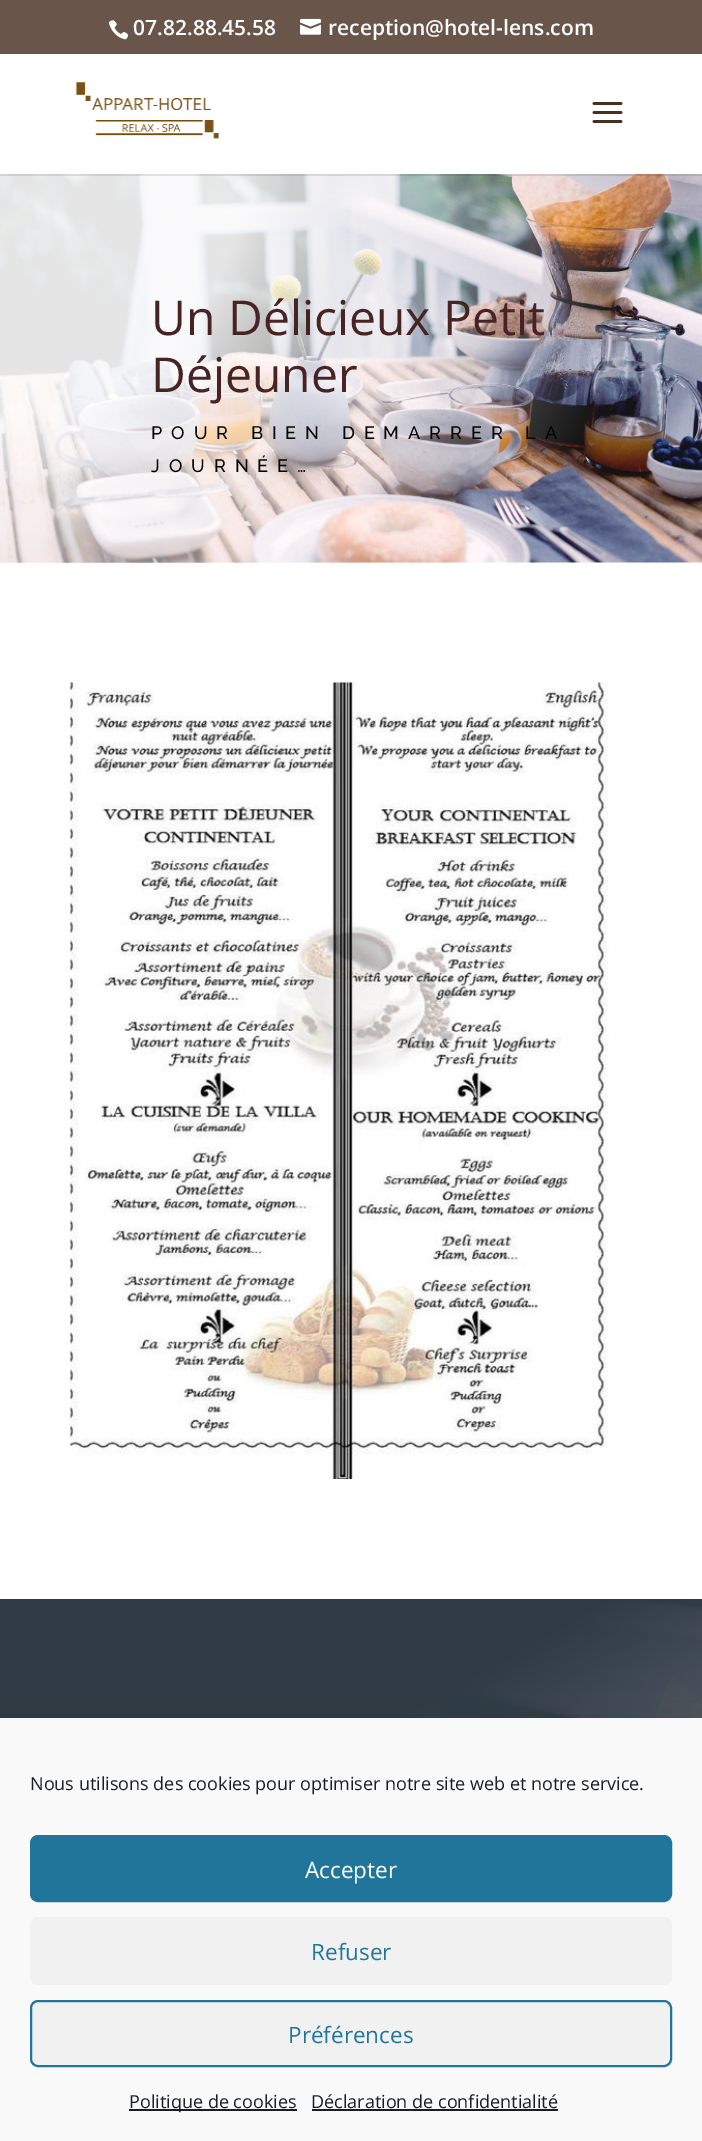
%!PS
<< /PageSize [702 2141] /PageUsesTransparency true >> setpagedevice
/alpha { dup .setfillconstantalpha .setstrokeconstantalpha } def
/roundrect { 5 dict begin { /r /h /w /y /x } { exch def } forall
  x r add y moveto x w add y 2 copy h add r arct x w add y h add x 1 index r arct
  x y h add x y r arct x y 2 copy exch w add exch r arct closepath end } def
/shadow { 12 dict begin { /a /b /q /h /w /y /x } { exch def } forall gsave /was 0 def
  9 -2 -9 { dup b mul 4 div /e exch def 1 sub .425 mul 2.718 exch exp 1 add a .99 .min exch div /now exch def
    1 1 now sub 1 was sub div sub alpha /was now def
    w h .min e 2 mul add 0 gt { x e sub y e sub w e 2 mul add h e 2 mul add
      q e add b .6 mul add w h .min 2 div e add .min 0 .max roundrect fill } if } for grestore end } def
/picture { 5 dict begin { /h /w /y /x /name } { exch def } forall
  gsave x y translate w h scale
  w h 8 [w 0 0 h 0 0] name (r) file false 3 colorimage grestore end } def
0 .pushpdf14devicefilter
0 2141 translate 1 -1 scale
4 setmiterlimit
1 setgray
0 0 702 2141 rectfill
0.416 0.333 0.29 setrgbcolor
0 0 702 54 rectfill
(img1.rgb) 108 20 21 20 picture
/OpenSans-SemiBold [21 0 0 -21 0 0] selectfont
1 setgray
133 35 moveto (07.82.88.45.58) show
(img2.rgb) 300 18 21 17 picture
328 35 moveto (reception@hotel-lens.com) show
(img5.rgb) 0 174 702 389 picture
0.1 alpha
0 setgray
0 174 702 2 rectfill
1 alpha
(img3.rgb) 76 82 144 57 picture
(img4.rgb) 592 102 31 21 picture
/OpenSans-Regular [48 0 0 -48 0 0] selectfont
0.282 0.137 0.137 setrgbcolor
151 335 moveto (Un Délicieux Petit) show
151 392 moveto (Déjeuner) show
/Raleway-Medium [18 0 0 -18 0 0] selectfont
0 setgray
151 439 moveto 9 0 (POUR BIEN DEMARRER LA) ashow
151 472 moveto 9 0 (JOURNÉE…) ashow
(img6.rgb) 70 682 539 797 picture
(img7.rgb) 0 1599 702 119 picture
0 1733 702 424 0 15 0.19 shadow
0.976 setgray
0 1719 702 422 rectfill
/OpenSans-Regular [18 0 0 -18 0 0] selectfont
0.098 0.118 0.137 setrgbcolor
30 1790 moveto (Nous utilisons des cookies pour optimiser notre site web et notre service.) show
0.129 0.459 0.608 setrgbcolor
31 1836 640 65 7 roundrect gsave fill grestore
2 setlinewidth
stroke
/OpenSans-Regular [22.5 0 0 -22.5 0 0] selectfont
1 setgray
305 1878 moveto (Accepter) show
0.945 setgray
30 1917 642 68 8 roundrect fill
0.129 0.459 0.608 setrgbcolor
311 1960 moveto (Refuser) show
0.945 setgray
31 2001 640 65 7 roundrect gsave fill grestore
0.129 0.459 0.608 setrgbcolor
stroke
288 2043 moveto (Préférences) show
0.098 0.118 0.137 setrgbcolor
129 2109 168 2 rectfill
/OpenSans-Regular [18 0 0 -18 0 0] selectfont
129 2108 moveto (Politique de cookies) show
311 2108 moveto (Déclaration de confidentialité) show
312 2109 246 2 rectfill
.poppdf14devicefilter showpage
